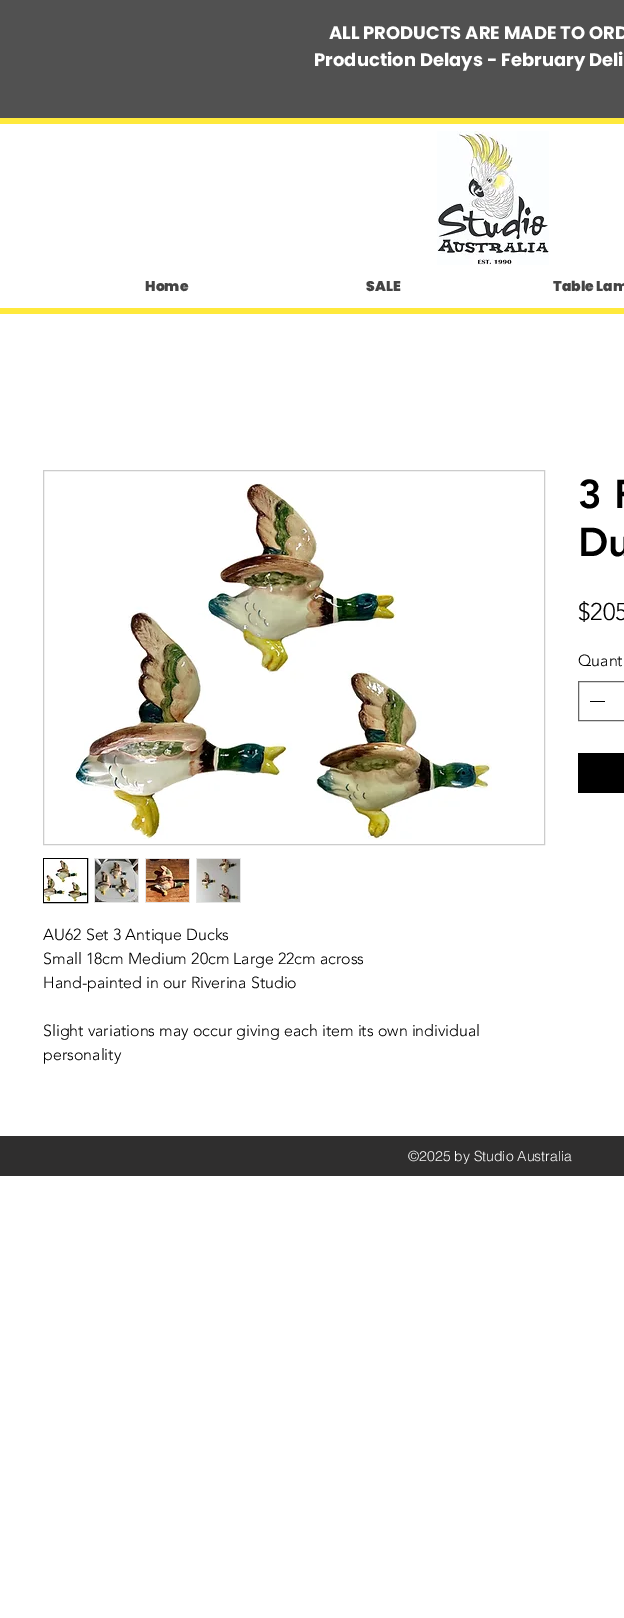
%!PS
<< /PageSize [624 1618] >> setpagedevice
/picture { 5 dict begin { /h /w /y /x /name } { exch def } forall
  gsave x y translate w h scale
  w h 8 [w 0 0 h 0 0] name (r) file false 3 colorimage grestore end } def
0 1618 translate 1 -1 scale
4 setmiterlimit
1 setgray
0 0 624 1618 rectfill
1 0.914 0.235 setrgbcolor
newpath -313 118 moveto -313 124 lineto 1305 124 lineto 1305 6 lineto 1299 6 lineto 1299 118 lineto closepath fill
0.318 setgray
0 0 624 118 rectfill
/Poppins-Bold [18 0 0 -18 0 0] selectfont
1 setgray
329 39 moveto (ALL PRODUCTS ARE MADE TO ORD) show
314 66 moveto (Production Delays - February Deli) show
(img1.rgb) 437 131 112 134 picture
/Poppins-Black [14 0 0 -14 0 0] selectfont
0.267 setgray
145 291 moveto (Home) show
366 291 moveto (SALE) show
553 291 moveto (Table Lam) show
1 0.914 0.235 setrgbcolor
0 308 624 6 rectfill
/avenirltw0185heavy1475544-Black [40 0 0 -40 0 0] selectfont
0 setgray
578 508 moveto (3 F) show
578 556 moveto (Du) show
/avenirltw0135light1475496-Light [24 0 0 -24 0 0] selectfont
578 620 moveto ($205) show
/avenirltw0135light1475496-Light [16 0 0 -16 0 0] selectfont
578 666 moveto (Quant) show
0.4 setgray
578.5 681.5 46 39 rectstroke
0 setgray
590 701 15 1 rectfill
578 753 46 40 rectfill
0.8 setgray
43.5 470.5 501 374 rectstroke
(img2.rgb) 75 483 417 357 picture
0 setgray
43.5 858.5 44 44 rectstroke
(img3.rgb) 44 859 43 43 picture
0.902 setgray
94 858 45 45 rectfill
(img4.rgb) 95 859 43 43 picture
145 858 45 45 rectfill
(img5.rgb) 146 859 43 43 picture
196 858 45 45 rectfill
(img6.rgb) 197 859 43 43 picture
0 setgray
43 940 moveto (AU62 Set 3 Antique Ducks) show
43 964 moveto (Small 18cm Medium 20cm Large 22cm across) show
43 988 moveto (Hand-painted in our Riverina Studio) show
43 1036 moveto (Slight variations may occur giving each item its own individual) show
43 1060 moveto (personality) show
0.184 0.18 0.18 setrgbcolor
0 1136 624 40 rectfill
/helvetica-Light [14 0 0 -14 0 0] selectfont
1 setgray
408 1161 moveto (©2025 by Studio Australia) show
showpage
